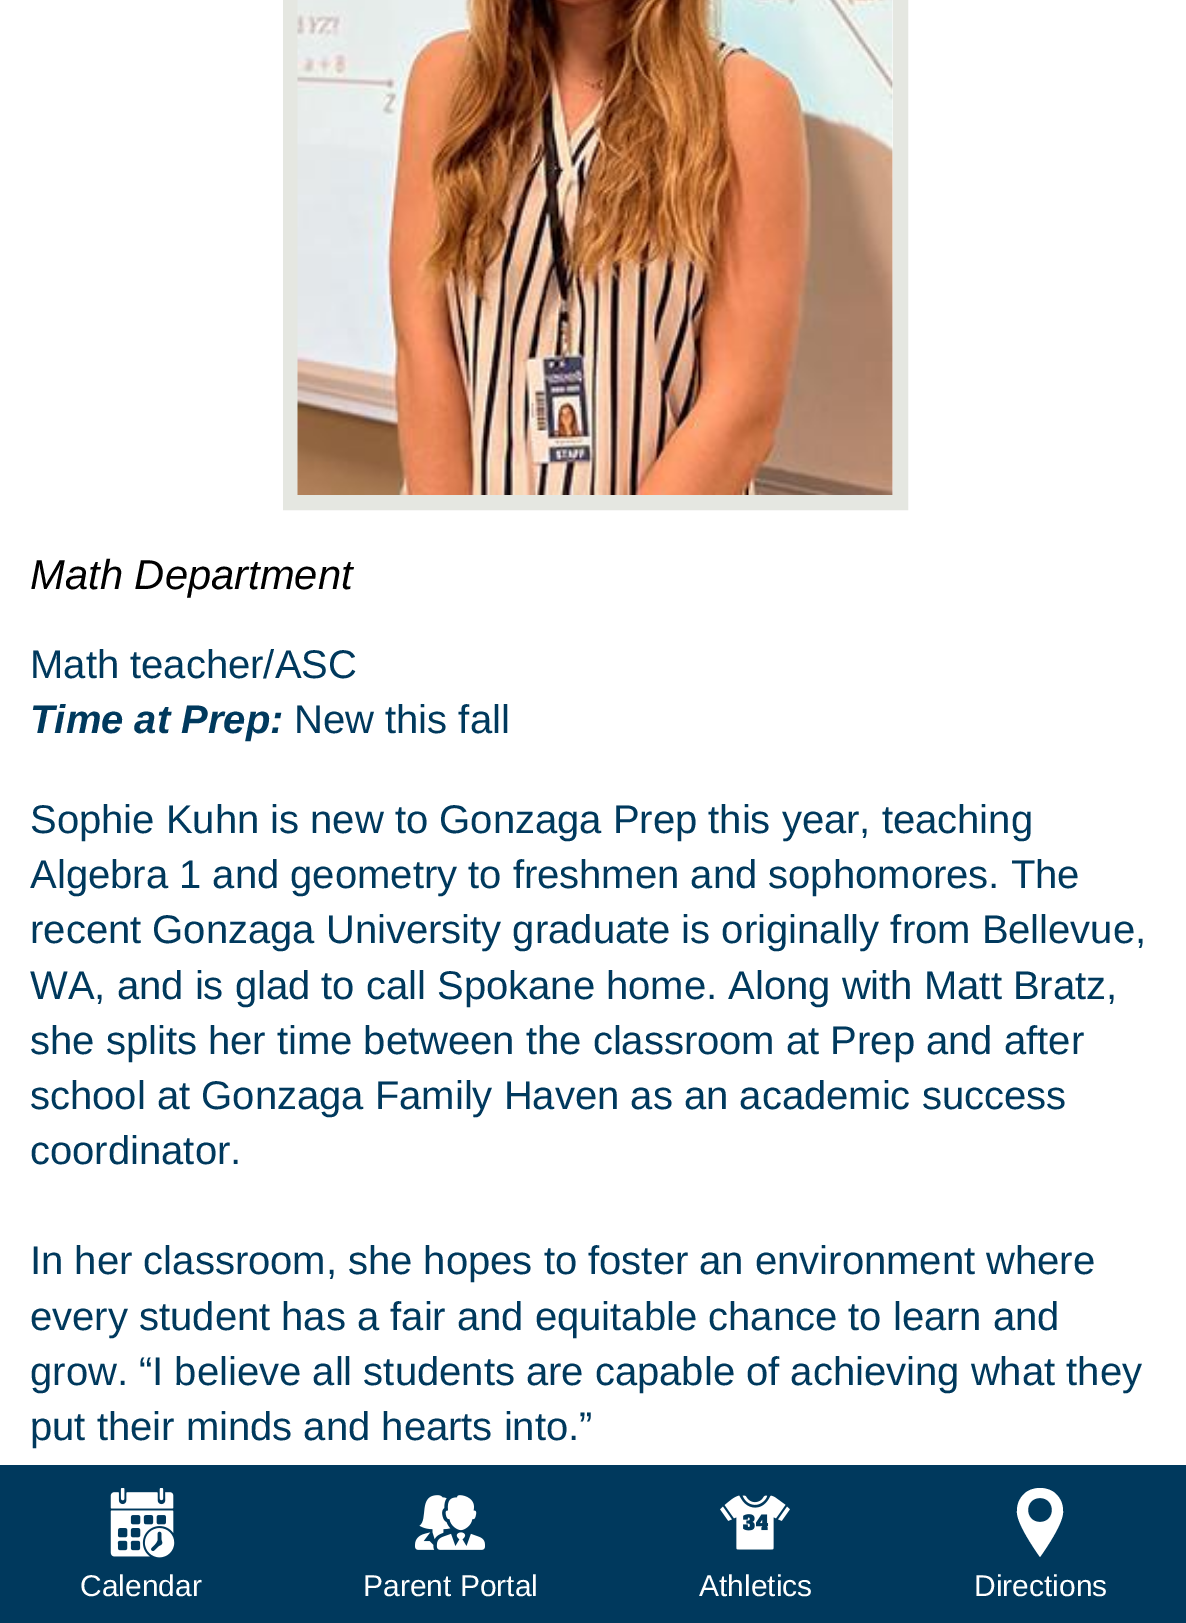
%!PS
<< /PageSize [1186 1623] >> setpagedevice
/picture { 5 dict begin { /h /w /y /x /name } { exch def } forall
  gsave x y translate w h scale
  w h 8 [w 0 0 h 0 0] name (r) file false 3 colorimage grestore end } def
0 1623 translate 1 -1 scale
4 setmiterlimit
1 setgray
0 0 1186 1623 rectfill
0.898 0.906 0.882 setrgbcolor
15 setlinewidth
290.5 -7.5 610 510 rectstroke
(img1.rgb) 297 0 596 495 picture
/LiberationSans-Italic [41.75 0 0 -41.75 0 0] selectfont
0 setgray
30 589 moveto (Math Department) show
/LiberationSans-Regular [40 0 0 -40 0 0] selectfont
0 0.224 0.365 setrgbcolor
30 678 moveto (Math teacher/ASC) show
/LiberationSans-BoldItalic [40 0 0 -40 0 0] selectfont
30 733 moveto (Time at Prep:) show
/LiberationSans-Regular [40 0 0 -40 0 0] selectfont
294 733 moveto (New this fall) show
30 833 moveto (Sophie Kuhn is new to Gonzaga Prep this year, teaching) show
30 888 moveto (Algebra 1 and geometry to freshmen and sophomores. The) show
30 943 moveto (recent Gonzaga University graduate is originally from Bellevue,) show
30 999 moveto (WA, and is glad to call Spokane home. Along with Matt Bratz,) show
30 1054 moveto (she splits her time between the classroom at Prep and after) show
30 1109 moveto (school at Gonzaga Family Haven as an academic success) show
30 1164 moveto (coordinator.) show
30 1274 moveto (In her classroom, she hopes to foster an environment where) show
30 1330 moveto (every student has a fair and equitable chance to learn and) show
30 1385 moveto (grow. “I believe all students are capable of achieving what they) show
30 1440 moveto (put their minds and hearts into.”) show
0 1465 1186 158 rectfill
(img2.rgb) 110 1488 65 70 picture
/LiberationSans-Regular [30 0 0 -30 0 0] selectfont
1 setgray
80 1596 moveto (Calendar) show
(img3.rgb) 415 1495 70 55 picture
363 1596 moveto (Parent Portal) show
(img4.rgb) 720 1495 70 55 picture
699 1596 moveto (Athletics) show
newpath 1040 1488 moveto 1034 1488 1028 1490 1024 1494 curveto 1019 1499 1017 1504 1017 1511 curveto 1016 1522 1033 1547 1040 1557 curveto 1047 1547 1064 1522 1063 1511 curveto 1063 1504 1061 1499 1056 1494 curveto 1052 1490 1046 1488 1040 1488 curveto closepath 1040 1522 moveto 1024 1522 1024 1498 1040 1498 curveto 1056 1498 1056 1522 1040 1522 curveto closepath fill
974 1596 moveto (Directions) show
showpage
